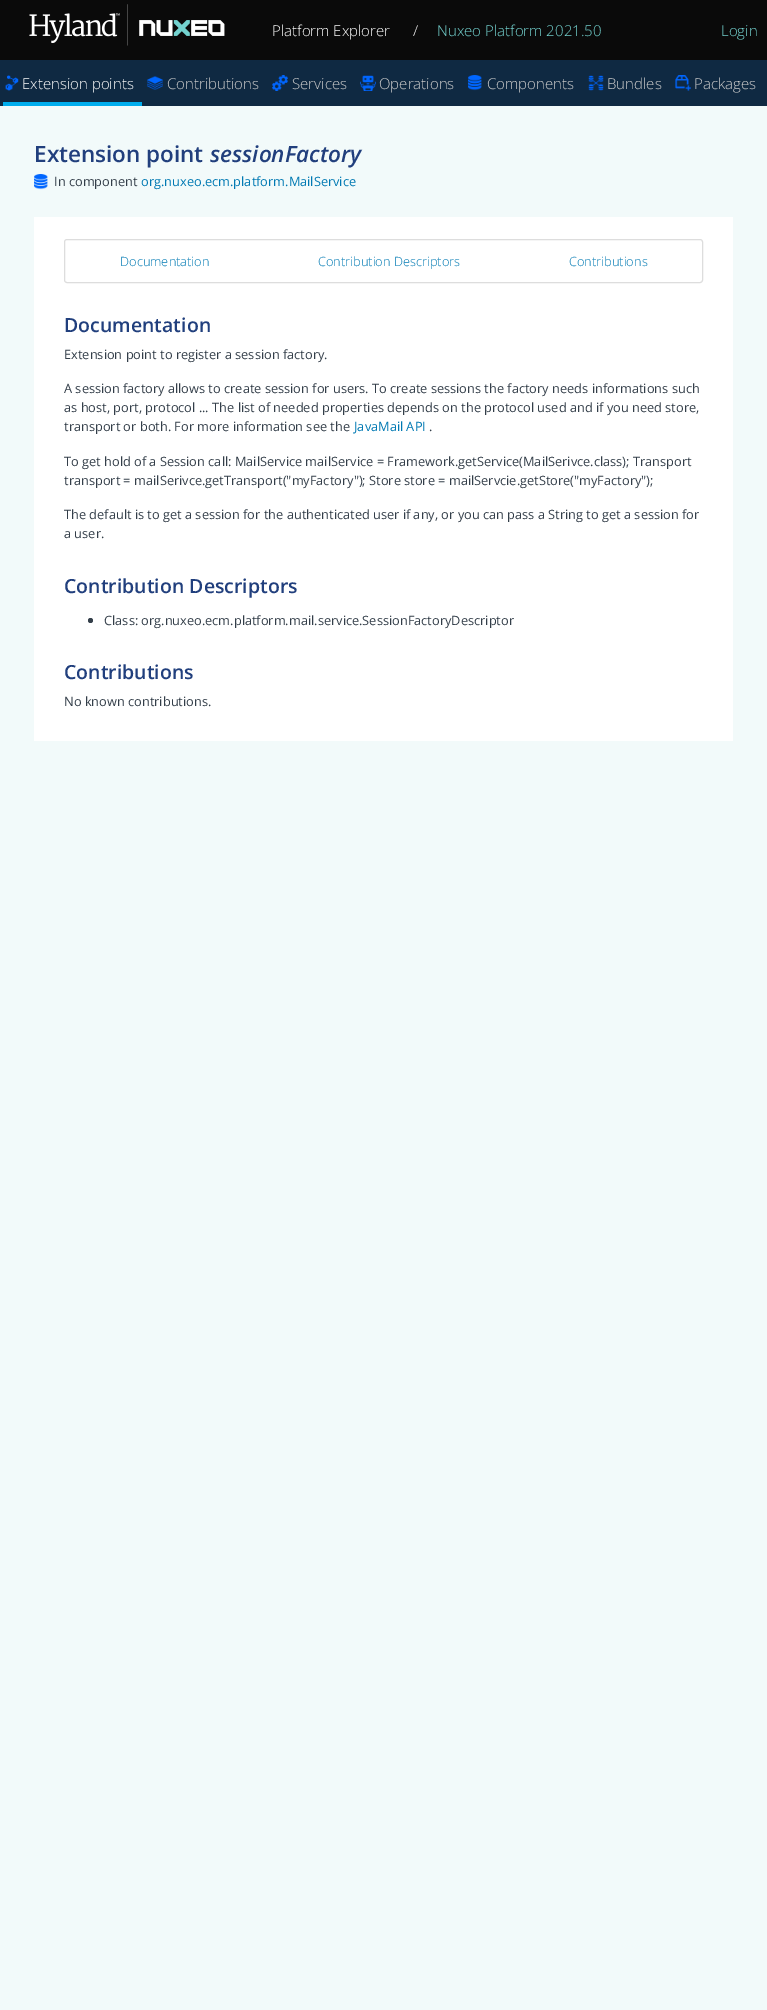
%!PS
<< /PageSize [767 2010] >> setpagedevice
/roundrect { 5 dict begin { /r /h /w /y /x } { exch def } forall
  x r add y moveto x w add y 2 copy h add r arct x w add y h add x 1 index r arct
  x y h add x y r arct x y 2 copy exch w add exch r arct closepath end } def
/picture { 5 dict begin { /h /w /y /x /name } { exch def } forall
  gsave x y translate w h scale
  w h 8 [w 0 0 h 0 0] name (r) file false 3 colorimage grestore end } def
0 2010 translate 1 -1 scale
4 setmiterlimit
0.949 0.98 0.98 setrgbcolor
0 0 767 2010 rectfill
0.039 setgray
0 0 767 60 rectfill
(img1.rgb) 29 4 196 42 picture
/OpenSans-Light [15 0 0 -15 0 0] selectfont
1 setgray
272 36 moveto (Platform Explorer) show
413 36 moveto (/) show
0.451 0.824 0.812 setrgbcolor
437 36 moveto (Nuxeo Platform 2021.50) show
721 36 moveto (Login) show
0.059 0.161 0.259 setrgbcolor
0 60 767 46 rectfill
(img2.rgb) 5 75 14 16 picture
0 0.678 0.929 setrgbcolor
3 102 139 4 rectfill
1 setgray
22 89 moveto (Extension points) show
(img3.rgb) 147 76 16 14 picture
0.8 setgray
167 89 moveto (Contributions) show
(img4.rgb) 272 75 16 16 picture
292 89 moveto (Services) show
(img5.rgb) 360 75 16 16 picture
379 89 moveto (Operations) show
(img6.rgb) 468 75 14 16 picture
487 89 moveto (Components) show
(img7.rgb) 588 75 16 16 picture
607 89 moveto (Bundles) show
(img8.rgb) 675 75 16 16 picture
694 89 moveto (Packages) show
/OpenSans-SemiBold [22.5 0 0 -22.5 0 0] selectfont
0.129 0.247 0.49 setrgbcolor
34 162 moveto (Extension point) show
/OpenSans-SemiBoldItalic [22.5 0 0 -22.5 0 0] selectfont
210 162 moveto (sessionFactory) show
(img9.rgb) 34 174 14 16 picture
/OpenSans-Regular [12.8 0 0 -12.8 0 0] selectfont
0.2 0.243 0.286 setrgbcolor
54 186 moveto (In component) show
0 0.475 0.702 setrgbcolor
141 186 moveto (org.nuxeo.ecm.platform.MailService) show
1 setgray
34 217 699 524 rectfill
0.867 setgray
64.5 239.5 638 43 2.5 roundrect stroke
/OpenSans-Light [12.8 0 0 -12.8 0 0] selectfont
0 0.475 0.702 setrgbcolor
120 266 moveto (Documentation) show
318 266 moveto (Contribution Descriptors) show
569 266 moveto (Contributions) show
/OpenSans-SemiBold [19.5 0 0 -19.5 0 0] selectfont
0.129 0.247 0.49 setrgbcolor
64 332 moveto (Documentation) show
/OpenSans-Regular [12.8 0 0 -12.8 0 0] selectfont
0.2 0.243 0.286 setrgbcolor
64 359 moveto (Extension point to register a session factory.) show
64 393 moveto (A session factory allows to create session for users. To create sessions the factory needs informations such) show
64 412 moveto (as host, port, protocol ... The list of needed properties depends on the protocol used and if you need store,) show
64 431 moveto (transport or both. For more information see the) show
0 0.475 0.702 setrgbcolor
354 431 moveto (JavaMail API) show
0.2 0.243 0.286 setrgbcolor
429 431 moveto (.) show
64 466 moveto (To get hold of a Session call: MailService mailService = Framework.getService\(MailSerivce.class\); Transport) show
64 485 moveto (transport = mailSerivce.getTransport\("myFactory"\); Store store = mailServcie.getStore\("myFactory"\);) show
64 519 moveto (The default is to get a session for the authenticated user if any, or you can pass a String to get a session for) show
64 538 moveto (a user.) show
/OpenSans-SemiBold [19.5 0 0 -19.5 0 0] selectfont
0.129 0.247 0.49 setrgbcolor
64 593 moveto (Contribution Descriptors) show
0.2 0.243 0.286 setrgbcolor
newpath 90.5 620.5 2.5 0 360 arc closepath fill
/OpenSans-Regular [12.8 0 0 -12.8 0 0] selectfont
104 625 moveto (Class: org.nuxeo.ecm.platform.mail.service.SessionFactoryDescriptor) show
/OpenSans-SemiBold [19.5 0 0 -19.5 0 0] selectfont
0.129 0.247 0.49 setrgbcolor
64 679 moveto (Contributions) show
/OpenSans-Regular [12.8 0 0 -12.8 0 0] selectfont
0.2 0.243 0.286 setrgbcolor
64 706 moveto (No known contributions.) show
showpage
